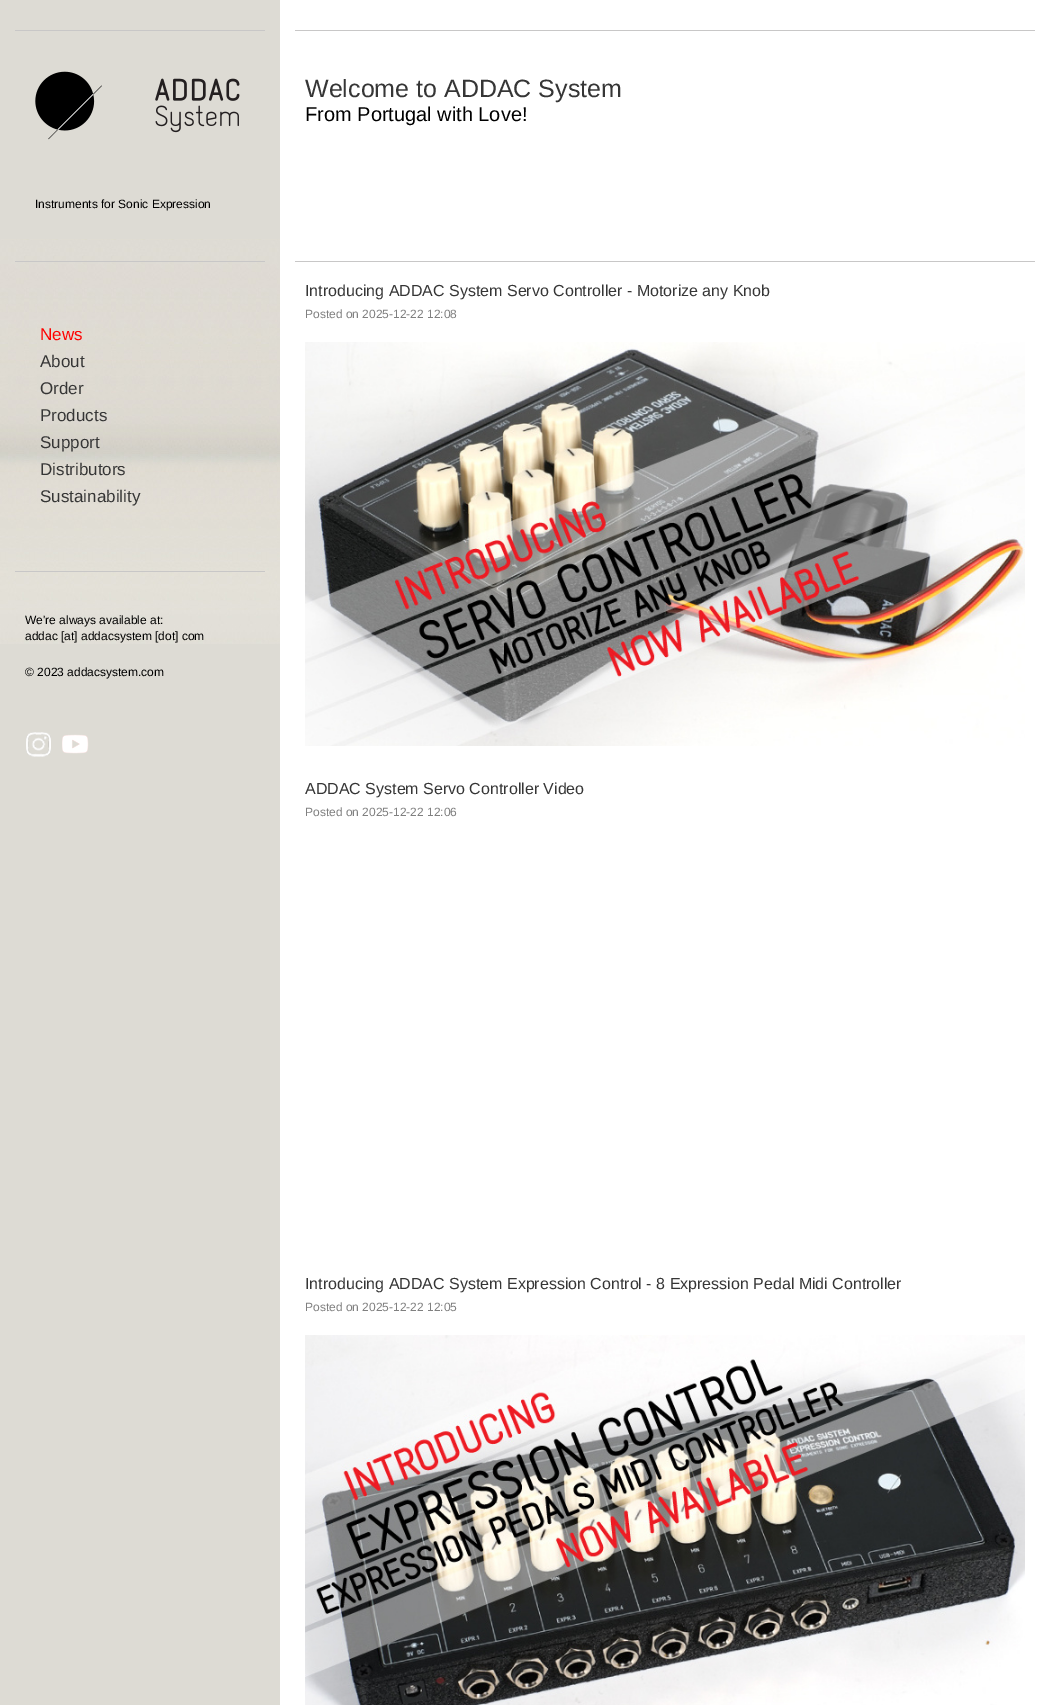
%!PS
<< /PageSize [1050 1705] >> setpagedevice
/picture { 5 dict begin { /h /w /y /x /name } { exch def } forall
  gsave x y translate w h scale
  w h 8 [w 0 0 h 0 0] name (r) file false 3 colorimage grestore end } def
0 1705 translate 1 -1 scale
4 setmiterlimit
0.867 0.859 0.831 setrgbcolor
0 0 1050 1705 rectfill
(img1.rgb) 0 239 280 405 picture
0.784 0.78 0.78 setrgbcolor
15 30 250 1 rectfill
15 261 250 1 rectfill
(img2.rgb) 35 71 205 69 picture
/LiberationSans-Regular [12 0 0 -12 0 0] selectfont
0 setgray
35 208 moveto (Instruments for Sonic Expression) show
/LiberationSans-Regular [17 0 0 -17 0 0] selectfont
1 0 0 setrgbcolor
40 340 moveto (News) show
0.212 setgray
40 367 moveto (About) show
40 394 moveto (Order) show
40 421 moveto (Products) show
40 448 moveto (Support) show
40 475 moveto (Distributors) show
40 502 moveto (Sustainability) show
0.784 0.78 0.78 setrgbcolor
15 571 250 1 rectfill
/LiberationSans-Regular [12 0 0 -12 0 0] selectfont
0 setgray
25 624 moveto (We're always available at:) show
25 640 moveto (addac [at] addacsystem [dot] com) show
25 676 moveto (© 2023 addacsystem.com) show
(img3.rgb) 26 732 25 25 picture
(img4.rgb) 62 734 27 20 picture
1 setgray
280 0 770 1705 rectfill
0.784 0.78 0.78 setrgbcolor
295 30 740 1 rectfill
295 261 740 1 rectfill
/LiberationSans-Regular [25 0 0 -25 0 0] selectfont
0.212 setgray
305 97 moveto (Welcome to ADDAC System) show
/LiberationSans-Regular [20 0 0 -20 0 0] selectfont
0 setgray
305 121 moveto (From Portugal with Love!) show
/LiberationSans-Regular [16 0 0 -16 0 0] selectfont
0.212 setgray
305 296 moveto (Introducing ADDAC System Servo Controller - Motorize any Knob) show
/LiberationSans-Regular [12 0 0 -12 0 0] selectfont
0.502 setgray
305 318 moveto (Posted on 2025-12-22 12:08) show
(img5.rgb) 305 342 720 404 picture
/LiberationSans-Regular [16 0 0 -16 0 0] selectfont
0.212 setgray
305 794 moveto (ADDAC System Servo Controller Video) show
/LiberationSans-Regular [12 0 0 -12 0 0] selectfont
0.502 setgray
305 816 moveto (Posted on 2025-12-22 12:06) show
/LiberationSans-Regular [16 0 0 -16 0 0] selectfont
0.212 setgray
305 1289 moveto (Introducing ADDAC System Expression Control - 8 Expression Pedal Midi Controller) show
/LiberationSans-Regular [12 0 0 -12 0 0] selectfont
0.502 setgray
305 1311 moveto (Posted on 2025-12-22 12:05) show
(img6.rgb) 305 1335 720 370 picture
showpage
